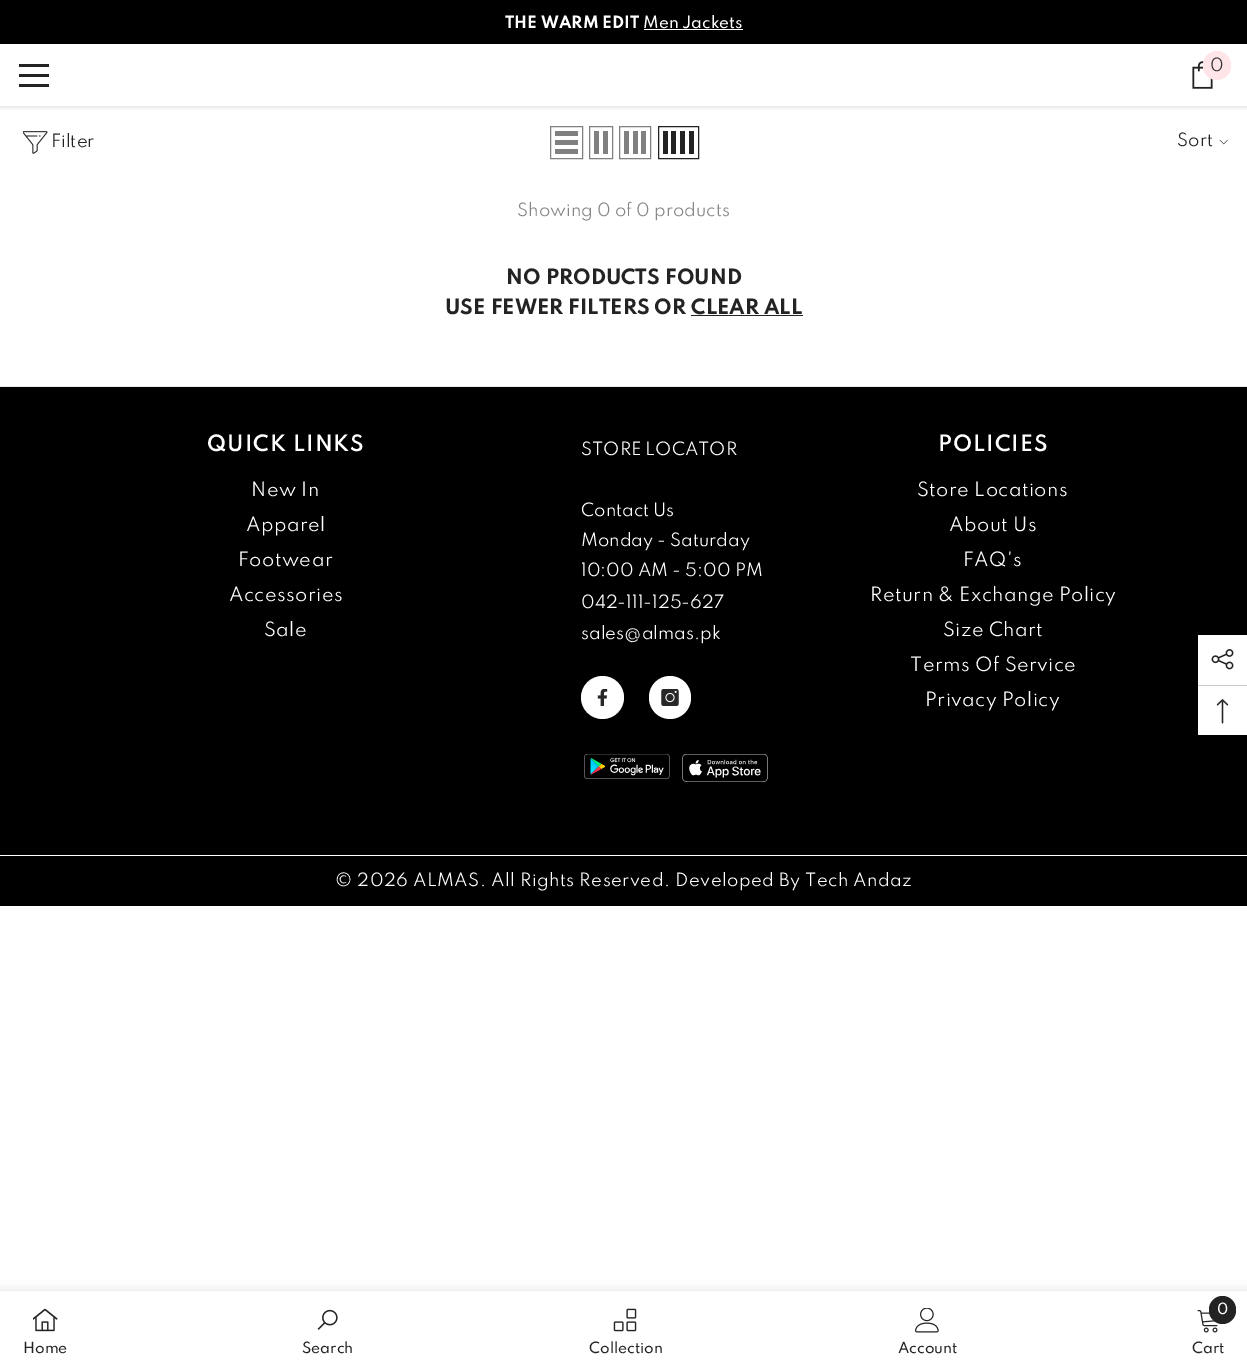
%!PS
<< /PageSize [1247 1369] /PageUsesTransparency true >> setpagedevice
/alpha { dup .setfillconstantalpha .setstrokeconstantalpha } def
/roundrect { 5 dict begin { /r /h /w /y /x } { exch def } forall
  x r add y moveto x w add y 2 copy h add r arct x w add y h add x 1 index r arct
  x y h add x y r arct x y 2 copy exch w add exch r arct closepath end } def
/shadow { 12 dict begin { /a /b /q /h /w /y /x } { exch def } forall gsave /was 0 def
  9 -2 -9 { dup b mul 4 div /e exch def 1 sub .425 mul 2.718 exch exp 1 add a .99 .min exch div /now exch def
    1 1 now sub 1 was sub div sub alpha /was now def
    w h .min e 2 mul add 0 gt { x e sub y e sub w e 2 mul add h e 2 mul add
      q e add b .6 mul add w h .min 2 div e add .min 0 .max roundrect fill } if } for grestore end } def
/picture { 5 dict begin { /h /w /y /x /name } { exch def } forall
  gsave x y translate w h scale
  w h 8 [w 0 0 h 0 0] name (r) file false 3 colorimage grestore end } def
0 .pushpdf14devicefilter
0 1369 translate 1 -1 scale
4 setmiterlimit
1 setgray
0 0 1247 1369 rectfill
0 setgray
0 0 1247 44 rectfill
/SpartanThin-Bold [15 0 0 -15 0 0] selectfont
1 setgray
505 28 moveto (THE WARM EDIT) show
/SpartanThin-Medium [15 0 0 -15 0 0] selectfont
643 28 moveto (Men Jackets) show
644 29 99 1 rectfill
gsave
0 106 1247 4 rectclip
0 setgray
0 45 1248 63 0 2 0.1 shadow
grestore
0.137 setgray
19 74 30 3 rectfill
19 64 30 3 rectfill
19 84 30 3 rectfill
(img1.rgb) 1192 61 21 28 picture
1 0.898 0.91 setrgbcolor
1203 51 28 29 14 roundrect fill
/SpartanThin-Regular [16.25 0 0 -16.25 0 0] selectfont
0.196 setgray
1210 71 moveto (0) show
(img2.rgb) 23 131 25 23 picture
0.137 setgray
51 147 moveto (Filter) show
0.502 setgray
550.5 126.5 32 32 rectstroke
555 149 23 5 rectfill
555 140 23 5 rectfill
555 131 23 5 rectfill
589.5 126.5 23 32 rectstroke
603 131 5 23 rectfill
594 131 5 23 rectfill
619.5 126.5 31 32 rectstroke
641 131 5 23 rectfill
633 131 5 23 rectfill
624 131 5 23 rectfill
0.137 setgray
658.5 126.5 40 32 rectstroke
689 131 5 23 rectfill
680 131 5 23 rectfill
671 131 5 23 rectfill
663 131 5 23 rectfill
1177 146 moveto (Sort) show
(img3.rgb) 1219 140 9 5 picture
0.525 setgray
517 216 moveto (Showing 0 of 0 products) show
/SpartanThin-Bold [18.75 0 0 -18.75 0 0] selectfont
0.137 setgray
506 284 moveto (NO PRODUCTS FOUND) show
445 314 moveto (USE FEWER FILTERS OR CLEAR ALL) show
691 315 112 1 rectfill
0 setgray
0 387 1247 468 rectfill
0.91 setgray
0 386 1247 1 rectfill
/SpartanThin-SemiBold [20 0 0 -20 0 0] selectfont
1 setgray
207 451 moveto 1 0 (QUICK LINKS) ashow
/SpartanThin-Regular [17.5 0 0 -17.5 0 0] selectfont
251 496 moveto 0.45 0 (New In) ashow
246 531 moveto 0.45 0 (Apparel) ashow
238 566 moveto 0.45 0 (Footwear) ashow
229 601 moveto 0.45 0 (Accessories) ashow
264 636 moveto 0.45 0 (Sale) ashow
/SpartanThin-Regular [16.25 0 0 -16.25 0 0] selectfont
581 455 moveto (STORE LOCATOR) show
581 516 moveto (Contact Us) show
581 546 moveto (Monday - Saturday) show
581 576 moveto (10:00 AM - 5:00 PM) show
581 608 moveto (042-111-125-627) show
581 639 moveto (sales@almas.pk) show
newpath 602.5 697.5 21.5 0 360 arc closepath fill
(img4.rgb) 597 689 11 17 picture
649 676 42 43 21 roundrect fill
(img5.rgb) 661 689 18 17 picture
(img6.rgb) 584 754 86 25 picture
(img7.rgb) 682 754 86 28 picture
/SpartanThin-SemiBold [20 0 0 -20 0 0] selectfont
938 451 moveto 1 0 (POLICIES) ashow
/SpartanThin-Regular [17.5 0 0 -17.5 0 0] selectfont
917 496 moveto 0.45 0 (Store Locations) ashow
949 531 moveto 0.45 0 (About Us) ashow
963 566 moveto 0.45 0 (FAQ's) ashow
870 601 moveto 0.45 0 (Return & Exchange Policy) ashow
943 636 moveto 0.45 0 (Size Chart) ashow
910 671 moveto 0.45 0 (Terms Of Service) ashow
925 706 moveto 0.45 0 (Privacy Policy) ashow
0 setgray
0 856 1247 50 rectfill
/SpartanThin-Regular [16.25 0 0 -16.25 0 0] selectfont
1 setgray
335 886 moveto 0.45 0 (© 2026 ALMAS. All Rights Reserved. Developed By Tech Andaz) ashow
0 setgray
0 1291 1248 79 0 5.5 0.12 shadow
1 setgray
0 1291 1247 78 rectfill
(img8.rgb) 33 1308 25 24 picture
/SpartanThin-Medium [13.75 0 0 -13.75 0 0] selectfont
0.137 setgray
23 1353 moveto (Home) show
(img9.rgb) 317 1309 21 21 picture
302 1353 moveto (Search) show
(img10.rgb) 613 1308 24 24 picture
589 1353 moveto (Collection) show
(img11.rgb) 915 1308 24 25 picture
898 1353 moveto (Account) show
(img12.rgb) 1197 1310 21 23 picture
1209 1296 27 28 13.5 roundrect fill
1 setgray
1217 1314 moveto (0) show
0.137 setgray
1192 1353 moveto (Cart) show
1 setgray
1198 635 49 100 rectfill
(img13.rgb) 1211 649 23 21 picture
0.8 setgray
1198 685 49 1 rectfill
(img14.rgb) 1216 699 13 25 picture
.poppdf14devicefilter showpage
